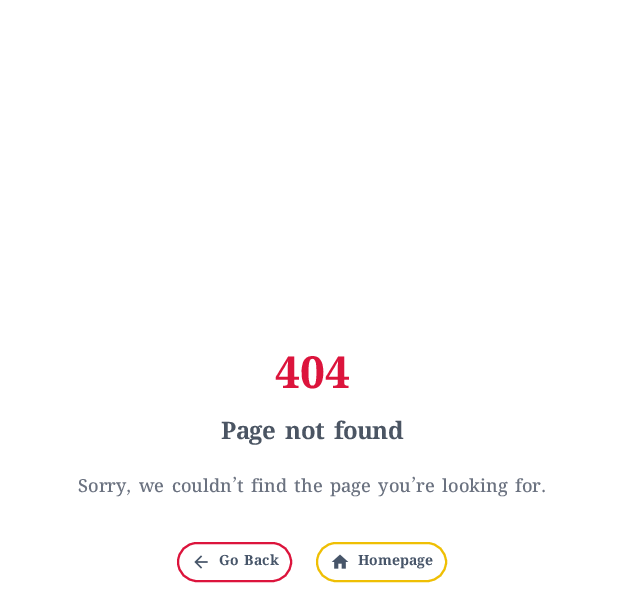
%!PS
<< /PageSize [624 589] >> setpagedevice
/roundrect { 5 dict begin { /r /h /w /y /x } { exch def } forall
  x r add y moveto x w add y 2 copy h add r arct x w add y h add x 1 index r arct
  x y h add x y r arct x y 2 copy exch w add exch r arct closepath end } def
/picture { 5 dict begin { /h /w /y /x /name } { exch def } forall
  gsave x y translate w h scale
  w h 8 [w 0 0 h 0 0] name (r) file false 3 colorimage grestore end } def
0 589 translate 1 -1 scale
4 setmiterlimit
1 setgray
0 0 624 589 rectfill
/NotoSerifOriya-Bold [48 0 0 -48 0 0] selectfont
0.863 0.078 0.235 setrgbcolor
275 388 moveto (404) show
/NotoSerifOriya-Bold [24 0 0 -24 0 0] selectfont
0.294 0.333 0.388 setrgbcolor
221 439 moveto -0.6 0 (Page not found) ashow
/NotoSerifOriya-Medium [18 0 0 -18 0 0] selectfont
0.42 0.447 0.502 setrgbcolor
78 492 moveto (Sorry, we couldn’t find the page you’re looking for.) show
0.863 0.078 0.235 setrgbcolor
2 setlinewidth
178 543 113 38 19 roundrect stroke
(img1.rgb) 194 555 14 14 picture
/NotoSerifOriya-Bold [14 0 0 -14 0 0] selectfont
0.278 0.333 0.412 setrgbcolor
219 565 moveto (Go Back) show
0.937 0.749 0.016 setrgbcolor
317 543 129 38 19 roundrect stroke
(img2.rgb) 331 554 18 15 picture
0.278 0.333 0.412 setrgbcolor
358 565 moveto (Homepage) show
showpage
